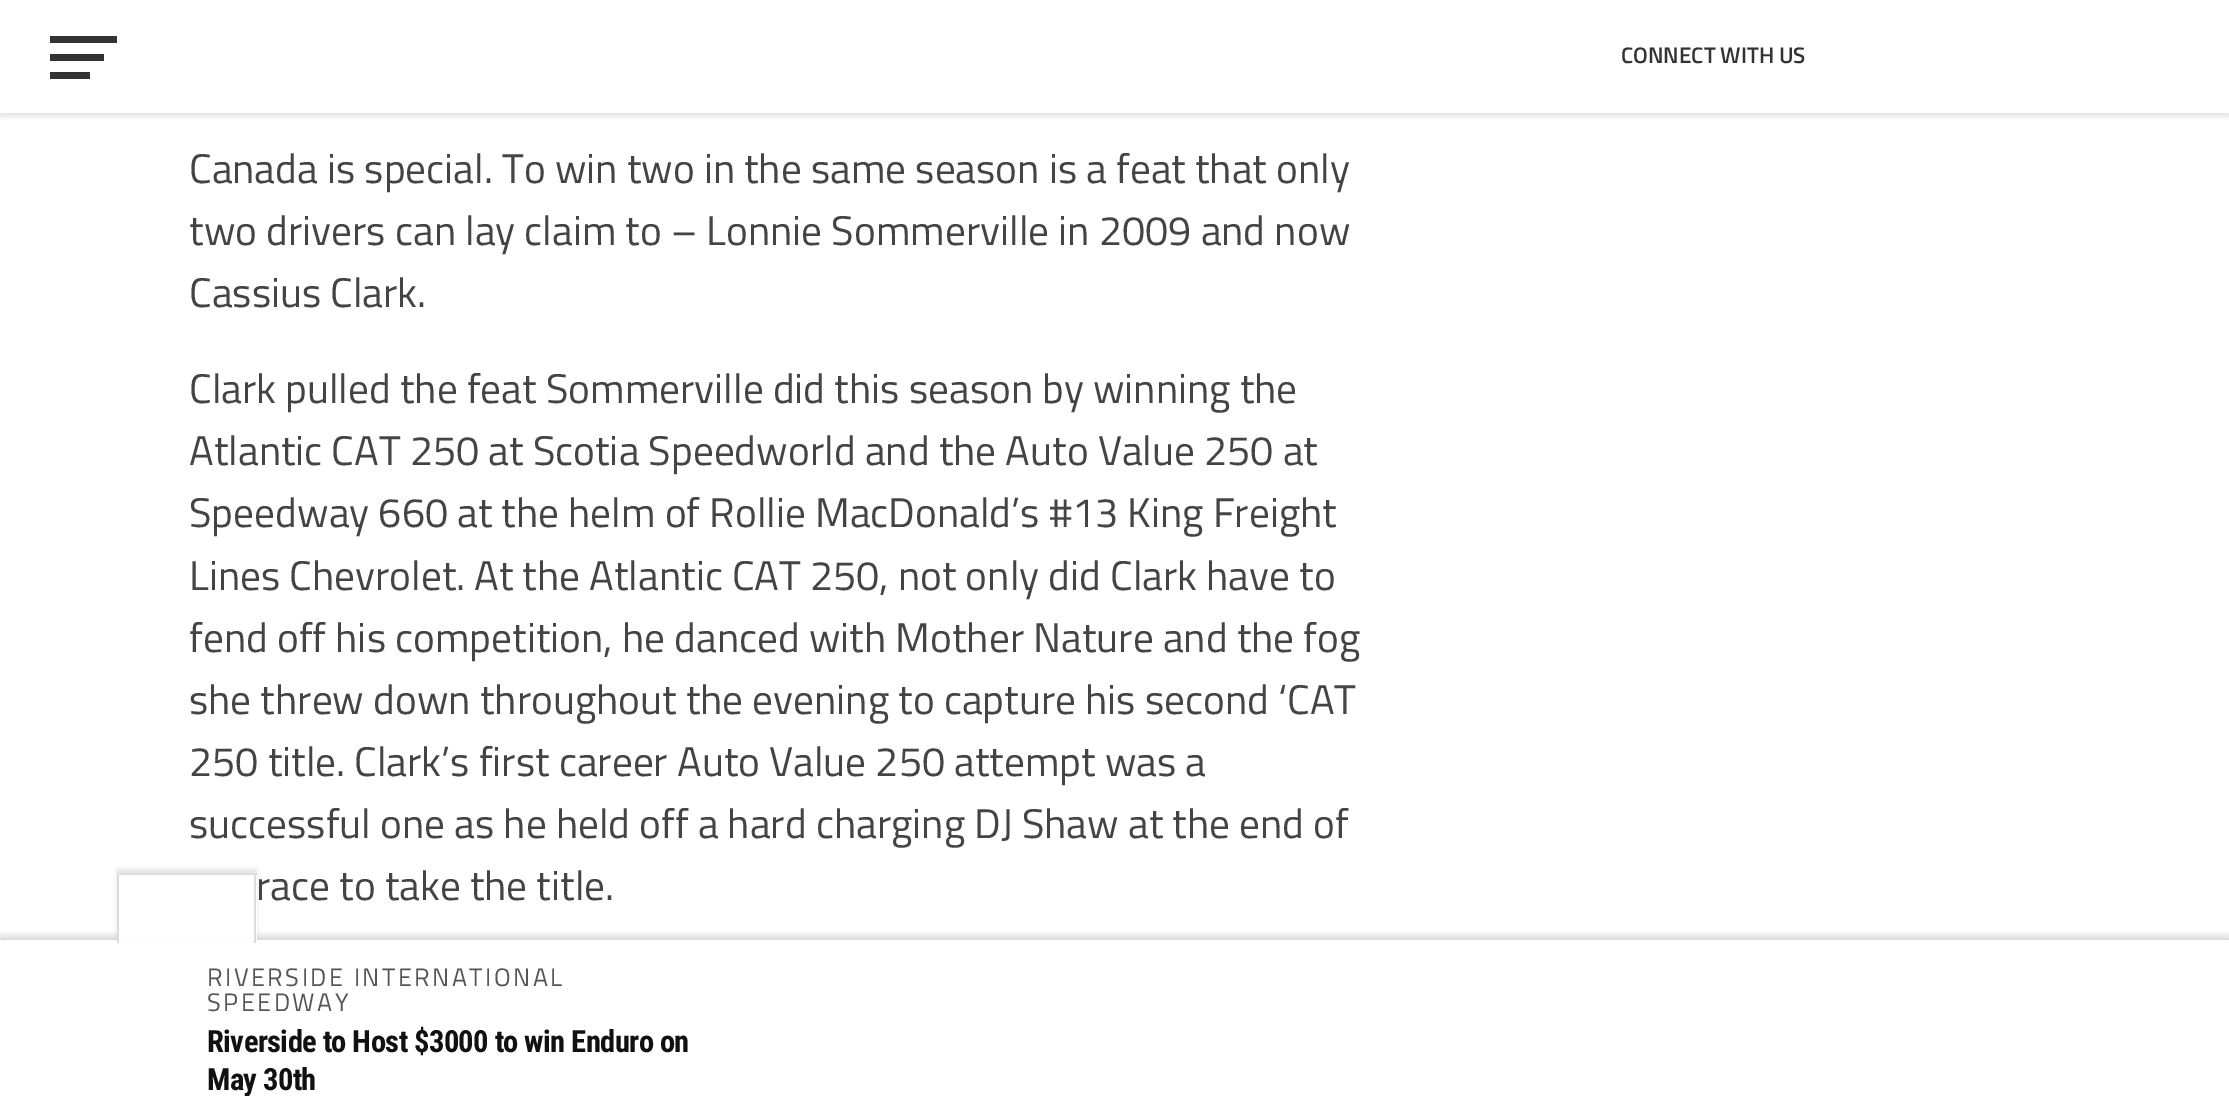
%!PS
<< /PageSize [2229 1096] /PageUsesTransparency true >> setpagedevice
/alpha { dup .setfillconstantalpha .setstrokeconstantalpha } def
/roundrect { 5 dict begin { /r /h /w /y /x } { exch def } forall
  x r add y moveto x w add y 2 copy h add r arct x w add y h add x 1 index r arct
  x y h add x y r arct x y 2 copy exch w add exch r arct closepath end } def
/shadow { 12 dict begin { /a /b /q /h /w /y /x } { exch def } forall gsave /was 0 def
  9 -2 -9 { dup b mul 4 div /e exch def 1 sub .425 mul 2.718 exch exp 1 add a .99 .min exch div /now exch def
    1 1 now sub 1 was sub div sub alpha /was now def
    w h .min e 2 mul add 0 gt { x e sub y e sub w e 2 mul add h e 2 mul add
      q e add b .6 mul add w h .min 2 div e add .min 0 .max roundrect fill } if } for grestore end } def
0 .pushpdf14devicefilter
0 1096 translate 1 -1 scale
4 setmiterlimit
1 setgray
0 0 2229 1096 rectfill
0 setgray
0 5 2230 112 0 2 0.1 shadow
1 setgray
0 2 2229 111 rectfill
0.2 setgray
50 36 67 7 rectfill
50 54 54 7 rectfill
50 72 40 7 rectfill
/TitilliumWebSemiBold-SemiBold [22.5 0 0 -22.5 0 0] selectfont
1621 63 moveto (CONNECT WITH US) show
/TitilliumWeb-Regular [41.4 0 0 -41.4 0 0] selectfont
0.267 setgray
189 183 moveto (Canada is special. To win two in the same season is a feat that only) show
189 245 moveto (two drivers can lay claim to – Lonnie Sommerville in 2009 and now) show
189 307 moveto (Cassius Clark.) show
189 403 moveto (Clark pulled the feat Sommerville did this season by winning the) show
189 465 moveto (Atlantic CAT 250 at Scotia Speedworld and the Auto Value 250 at) show
189 527 moveto (Speedway 660 at the helm of Rollie MacDonald’s #13 King Freight) show
189 590 moveto (Lines Chevrolet. At the Atlantic CAT 250, not only did Clark have to) show
189 652 moveto (fend off his competition, he danced with Mother Nature and the fog) show
189 714 moveto (she threw down throughout the evening to capture his second ‘CAT) show
189 776 moveto (250 title. Clark’s first career Auto Value 250 attempt was a) show
189 838 moveto (successful one as he held off a hard charging DJ Shaw at the end of) show
256 900 moveto (race to take the title.) show
0 setgray
0 934 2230 160 0 2 0.1 shadow
1 setgray
0 940 2229 156 rectfill
0.867 setgray
0 938 2229 2 rectfill
0 setgray
117 869 140 69 0 2 0.1 shadow
1 setgray
119 875 138 66 rectfill
0.867 setgray
117 873 140 2 rectfill
254 873 2 70 rectfill
117 873 2 70 rectfill
/TitilliumWeb-Regular [25.25 0 0 -25.25 0 0] selectfont
0.333 setgray
207 986 moveto 2.5 0 (RIVERSIDE INTERNATIONAL) ashow
207 1011 moveto 2.5 0 (SPEEDWAY) ashow
/RobotoCondensed-Bold [30.6 0 0 -30.6 0 0] selectfont
0.067 setgray
207 1052 moveto -0.6 0 (Riverside to Host $3000 to win Enduro on) ashow
207 1090 moveto -0.6 0 (May 30th) ashow
.poppdf14devicefilter showpage
